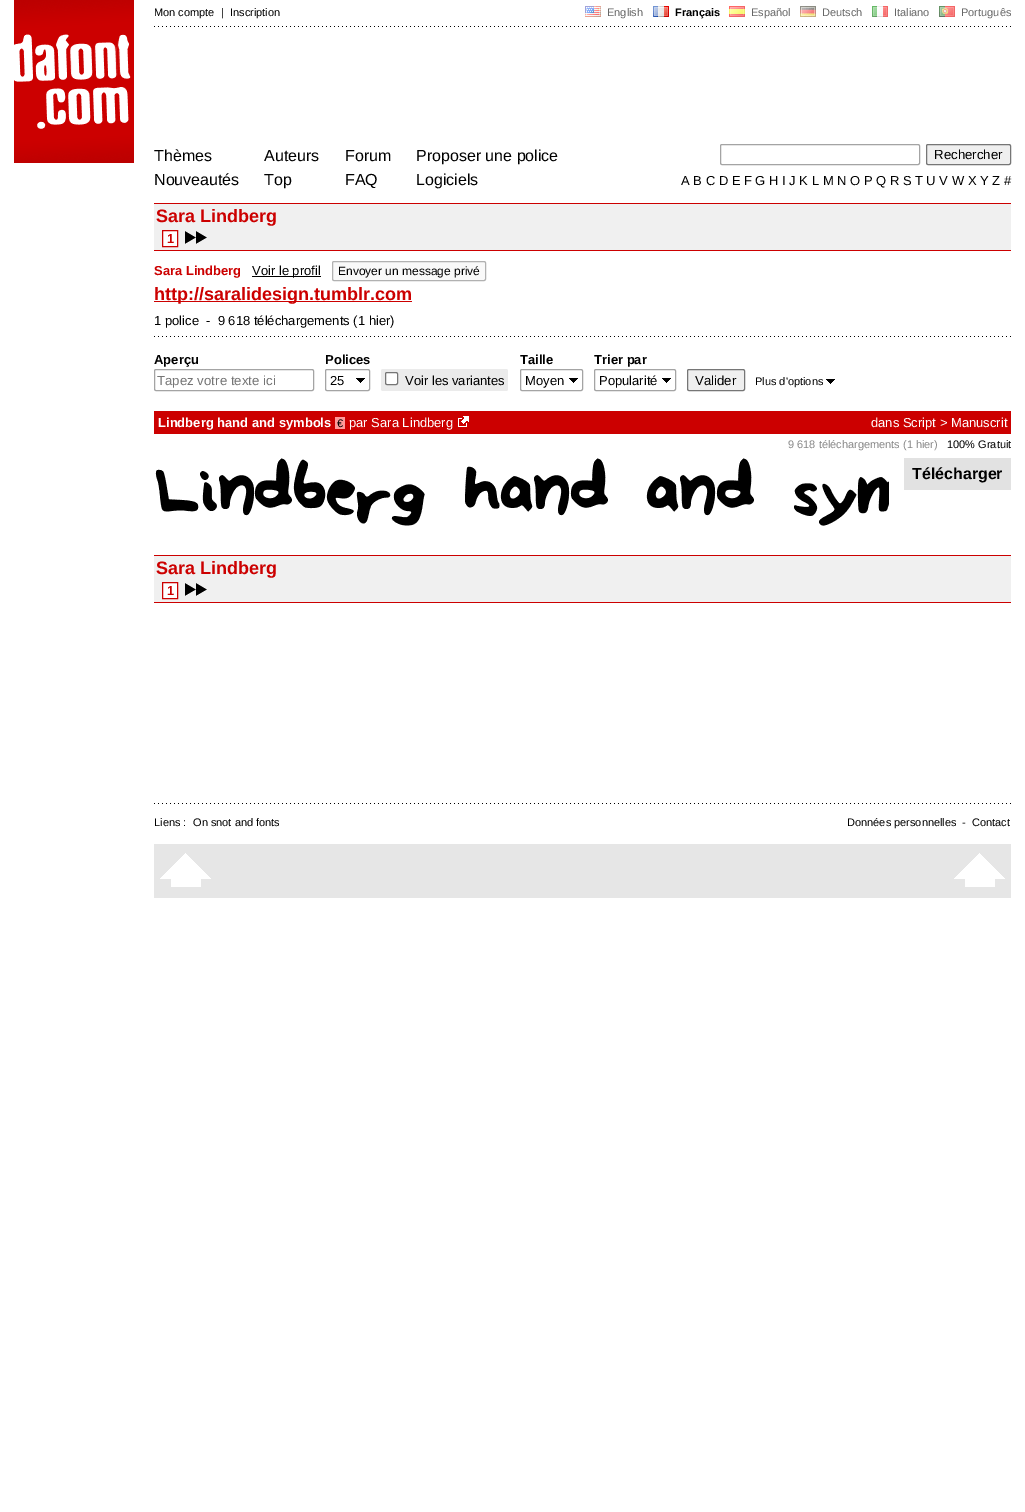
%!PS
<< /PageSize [1025 1512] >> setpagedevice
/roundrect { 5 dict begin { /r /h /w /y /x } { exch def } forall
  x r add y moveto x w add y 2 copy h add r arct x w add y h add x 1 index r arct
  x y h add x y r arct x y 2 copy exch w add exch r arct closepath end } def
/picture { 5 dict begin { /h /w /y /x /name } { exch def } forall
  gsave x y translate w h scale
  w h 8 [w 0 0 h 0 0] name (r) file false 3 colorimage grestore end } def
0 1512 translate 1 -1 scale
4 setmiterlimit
1 setgray
0 0 1025 1512 rectfill
(img1.rgb) 14 0 120 163 picture
/LiberationSans-Regular [11 0 0 -11 0 0] selectfont
0 setgray
154 16 moveto (Mon compte) show
221 16 moveto (|) show
230 16 moveto (Inscription) show
(img2.rgb) 585 6 16 11 picture
0.4 setgray
607 16 moveto (English) show
(img3.rgb) 653 6 16 11 picture
/LiberationSans-Bold [11 0 0 -11 0 0] selectfont
0 setgray
675 16 moveto (Français) show
(img4.rgb) 729 6 16 11 picture
/LiberationSans-Regular [11 0 0 -11 0 0] selectfont
0.4 setgray
751 16 moveto (Español) show
(img5.rgb) 800 6 16 11 picture
822 16 moveto (Deutsch) show
(img6.rgb) 872 6 16 11 picture
894 16 moveto (Italiano) show
(img7.rgb) 939 6 16 11 picture
961 16 moveto (Português) show
(img8.rgb) 154 26 857 1 picture
/LiberationSans-Regular [16 0 0 -16 0 0] selectfont
0 setgray
154 161 moveto (Thèmes) show
154 185 moveto (Nouveautés) show
264 161 moveto (Auteurs) show
264 185 moveto (Top) show
345 161 moveto (Forum) show
345 185 moveto (FAQ) show
416 161 moveto (Proposer une police) show
416 185 moveto (Logiciels) show
0.643 setgray
720.5 144.5 199 20 1.5 roundrect stroke
0.937 setgray
926.5 144.5 84 20 1.5 roundrect gsave fill grestore
0.463 setgray
stroke
/LiberationSans-Regular [13.25 0 0 -13.25 0 0] selectfont
0 setgray
934 159 moveto (Rechercher) show
/LiberationSans-Regular [13 0 0 -13 0 0] selectfont
681 185 moveto (A B C D E F G H I J K L M N O P Q R S T U V W X Y Z #) show
0.941 setgray
154 204 857 46 rectfill
0.8 0 0 setrgbcolor
154 203 857 1 rectfill
154 250 857 1 rectfill
/LiberationSans-Bold [18 0 0 -18 0 0] selectfont
156 222 moveto (Sara Lindberg) show
1 setgray
newpath 162.5 230.5 moveto 177.5 230.5 lineto 177.5 246.5 lineto 162.5 246.5 lineto closepath gsave fill grestore
0.8 0 0 setrgbcolor
stroke
/LiberationSans-Bold [13 0 0 -13 0 0] selectfont
167 243 moveto (1) show
(img9.rgb) 185 231 22 13 picture
154 275 moveto (Sara Lindberg) show
0 setgray
252 276 69 1 rectfill
/LiberationSans-Regular [13 0 0 -13 0 0] selectfont
252 275 moveto (Voir le profil) show
0.976 setgray
332.5 261.5 153 19 1.5 roundrect gsave fill grestore
0.694 setgray
stroke
/LiberationSans-Regular [12 0 0 -12 0 0] selectfont
0 setgray
338 275 moveto (Envoyer un message privé) show
0.8 0 0 setrgbcolor
154 301 258 1 rectfill
/LiberationSans-Bold [18 0 0 -18 0 0] selectfont
154 300 moveto (http://saralidesign.tumblr.com) show
/LiberationSans-Regular [13 0 0 -13 0 0] selectfont
0 setgray
154 325 moveto (1 police  -  9 618 téléchargements \(1 hier\)) show
(img8.rgb) 154 336 857 1 picture
/LiberationSans-Bold [13 0 0 -13 0 0] selectfont
154 364 moveto (Aperçu) show
0.643 setgray
154.5 369.5 159 21 1.5 roundrect stroke
/LiberationSans-Regular [13.25 0 0 -13.25 0 0] selectfont
0.459 setgray
157 385 moveto (Tapez votre texte ici) show
/LiberationSans-Bold [13 0 0 -13 0 0] selectfont
0 setgray
325 364 moveto (Polices) show
(img10.rgb) 356 378 9 5 picture
0.643 setgray
325.5 369.5 44 21 1.5 roundrect stroke
/LiberationSans-Regular [13 0 0 -13 0 0] selectfont
0 setgray
330 385 moveto (25) show
0.922 setgray
381 369 127 22 2 roundrect fill
1 setgray
385.5 372.5 12 12 1.5 roundrect gsave fill grestore
0.463 setgray
stroke
0 setgray
405 385 moveto (Voir les variantes) show
/LiberationSans-Bold [13 0 0 -13 0 0] selectfont
520 364 moveto (Taille) show
(img10.rgb) 569 378 9 5 picture
0.643 setgray
520.5 369.5 62 21 1.5 roundrect stroke
/LiberationSans-Regular [13 0 0 -13 0 0] selectfont
0 setgray
525 385 moveto (Moyen) show
/LiberationSans-Bold [13 0 0 -13 0 0] selectfont
594 364 moveto (Trier par) show
(img10.rgb) 662 378 9 5 picture
0.643 setgray
594.5 369.5 81 21 1.5 roundrect stroke
/LiberationSans-Regular [13 0 0 -13 0 0] selectfont
0 setgray
599 385 moveto (Popularité) show
0.937 setgray
687.5 369.5 57 21 1.5 roundrect gsave fill grestore
0.463 setgray
stroke
/LiberationSans-Regular [13.25 0 0 -13.25 0 0] selectfont
0 setgray
695 385 moveto (Valider) show
/LiberationSans-Regular [11 0 0 -11 0 0] selectfont
755 385 moveto (Plus d'options) show
(img10.rgb) 826 379 9 5 picture
0.8 0 0 setrgbcolor
154 411 857 23 rectfill
/LiberationSans-Bold [13 0 0 -13 0 0] selectfont
1 setgray
158 427 moveto (Lindberg hand and symbols) show
1 0.6 0.6 setrgbcolor
335 417 10 12 rectfill
/LiberationSans-Regular [11 0 0 -11 0 0] selectfont
0 setgray
337 427 moveto (€) show
/LiberationSans-Regular [13 0 0 -13 0 0] selectfont
1 setgray
349 427 moveto (par Sara Lindberg) show
(img11.rgb) 458 416 11 11 picture
871 427 moveto (dans Script > Manuscrit) show
/LiberationSans-Regular [11 0 0 -11 0 0] selectfont
0.533 setgray
788 448 moveto (9 618 téléchargements \(1 hier\)) show
0 setgray
947 448 moveto (100% Gratuit) show
(img12.rgb) 155 458 734 68 picture
0.886 setgray
904 458 107 32 rectfill
/LiberationSans-Bold [16 0 0 -16 0 0] selectfont
0 setgray
912 479 moveto (Télécharger) show
0.941 setgray
154 556 857 46 rectfill
0.8 0 0 setrgbcolor
154 555 857 1 rectfill
154 602 857 1 rectfill
/LiberationSans-Bold [18 0 0 -18 0 0] selectfont
156 574 moveto (Sara Lindberg) show
1 setgray
newpath 162.5 582.5 moveto 177.5 582.5 lineto 177.5 598.5 lineto 162.5 598.5 lineto closepath gsave fill grestore
0.8 0 0 setrgbcolor
stroke
/LiberationSans-Bold [13 0 0 -13 0 0] selectfont
167 595 moveto (1) show
(img9.rgb) 185 583 22 13 picture
(img8.rgb) 154 803 857 1 picture
/LiberationSans-Regular [11 0 0 -11 0 0] selectfont
0 setgray
154 826 moveto (Liens :) show
193 826 moveto (On snot and fonts) show
847 826 moveto (Données personnelles) show
962 826 moveto (-) show
972 826 moveto (Contact) show
0.902 setgray
154 844 857 54 rectfill
(img13.rgb) 160 853 51 34 picture
(img13.rgb) 954 853 51 34 picture
showpage
